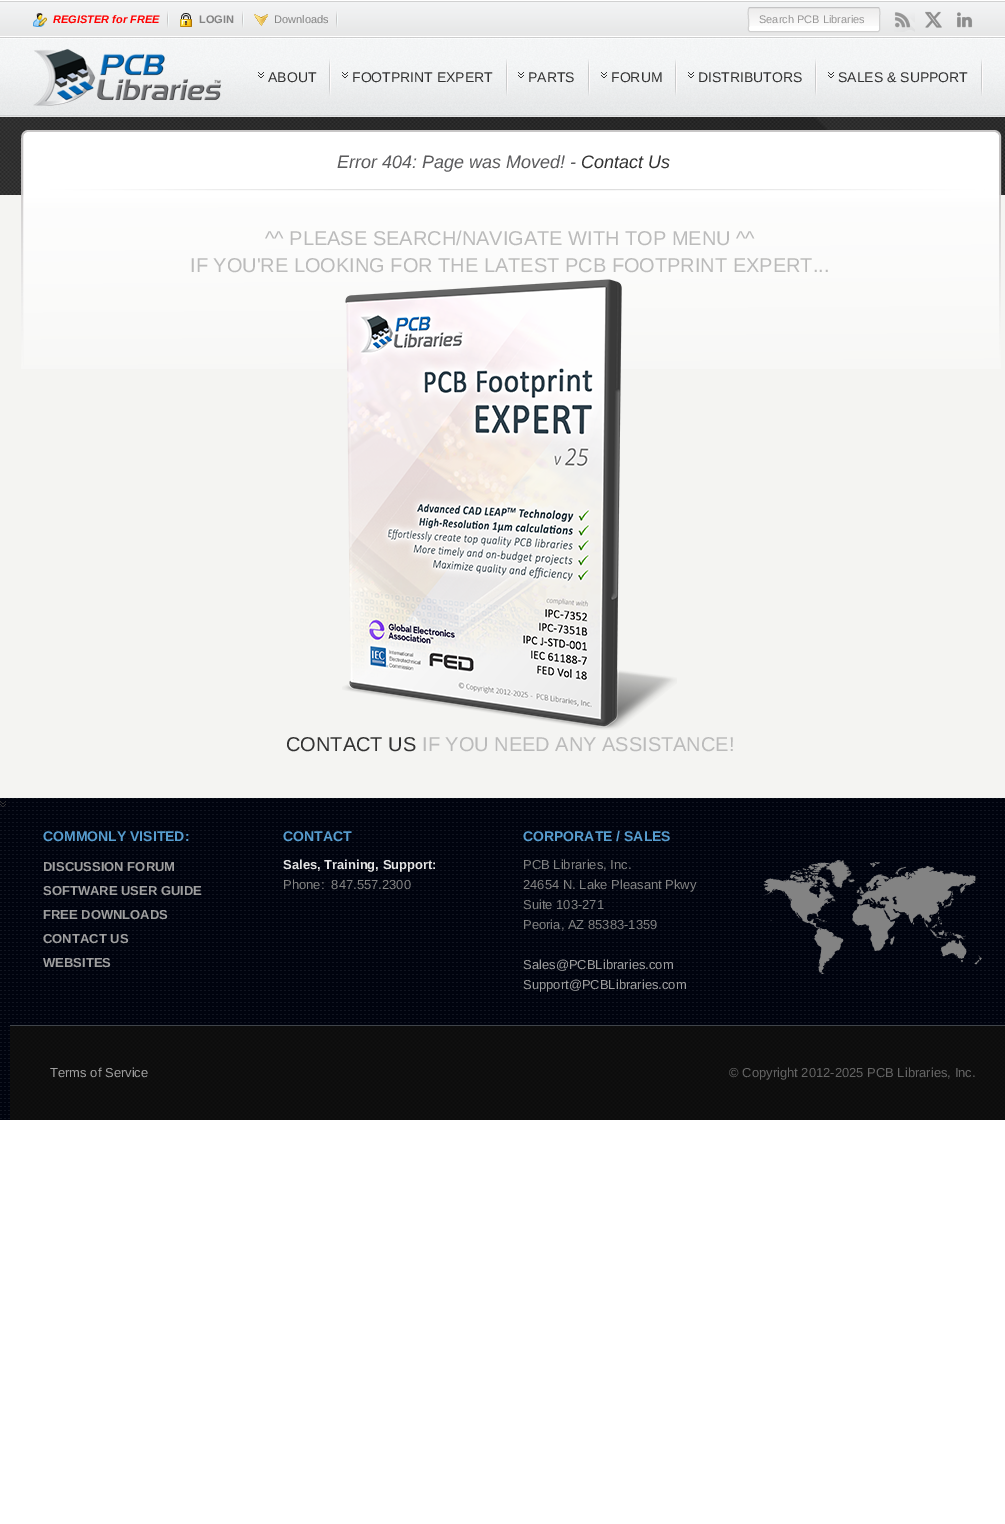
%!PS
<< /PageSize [1005 1524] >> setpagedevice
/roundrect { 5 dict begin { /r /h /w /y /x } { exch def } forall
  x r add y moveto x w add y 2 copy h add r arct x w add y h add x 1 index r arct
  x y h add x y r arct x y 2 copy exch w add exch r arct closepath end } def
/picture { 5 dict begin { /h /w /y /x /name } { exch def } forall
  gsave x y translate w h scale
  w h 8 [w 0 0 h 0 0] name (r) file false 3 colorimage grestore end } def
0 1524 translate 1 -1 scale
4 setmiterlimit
1 setgray
0 0 1005 1524 rectfill
0.957 0.957 0.949 setrgbcolor
0 195 1005 603 rectfill
(img1.rgb) 0 0 1005 37 picture
(img2.rgb) 167 11 2 17 picture
(img3.rgb) 33 13 14 14 picture
/LiberationSans-BoldItalic [11 0 0 -11 0 0] selectfont
1 0 0 setrgbcolor
53 23 moveto (REGISTER for FREE) show
(img2.rgb) 242 11 2 17 picture
(img4.rgb) 180 13 12 14 picture
/LiberationSans-Bold [11 0 0 -11 0 0] selectfont
0.514 setgray
199 23 moveto (LOGIN) show
(img2.rgb) 336 11 2 17 picture
(img5.rgb) 254 14 14 12 picture
/LiberationSans-Regular [11 0 0 -11 0 0] selectfont
274 23 moveto (Downloads) show
1 setgray
748 7 132 25 2 roundrect fill
(img6.rgb) 748 7 132 19 picture
0.769 0.769 0.773 setrgbcolor
newpath 749 8 moveto 750 7.5 lineto 878 7.5 lineto 879 8 lineto stroke
0.82 setgray
newpath 879 8 moveto 880.5 9.5 879.5 17.5 879.5 19.5 curveto 879.5 26.5 lineto 879.5 27.5 880.5 31.5 878 31.5 curveto 750 31.5 lineto 747.5 31.5 748.5 27.5 748.5 26.5 curveto 748.5 19.5 lineto 748.5 17.5 747.5 9.5 749 8 curveto stroke
0.592 0.588 0.588 setrgbcolor
759 23 moveto (Search PCB Libraries) show
(img7.rgb) 894 12 21 20 picture
(img8.rgb) 925 11 17 17 picture
(img9.rgb) 957 12 16 16 picture
(img10.rgb) 0 37 1005 80 picture
(img11.rgb) 33 49 188 57 picture
(img12.rgb) 329 59 2 37 picture
(img13.rgb) 258 72 6 6 picture
/LiberationSans-Regular [14 0 0 -14 0 0] selectfont
0.2 setgray
268 82 moveto (ABOUT) show
(img14.rgb) 506 59 2 37 picture
(img15.rgb) 342 72 6 6 picture
352 82 moveto (FOOTPRINT EXPERT) show
(img16.rgb) 588 59 2 37 picture
(img17.rgb) 518 72 6 6 picture
528 82 moveto (PARTS) show
(img18.rgb) 675 59 2 37 picture
(img19.rgb) 601 72 6 6 picture
611 82 moveto (FORUM) show
(img12.rgb) 815 59 2 37 picture
(img20.rgb) 688 72 6 6 picture
698 82 moveto (DISTRIBUTORS) show
(img21.rgb) 981 59 2 37 picture
(img15.rgb) 828 72 6 6 picture
838 82 moveto (SALES & SUPPORT) show
(img22.rgb) 0 117 1005 78 picture
(img23.rgb) 21 130 981 239 picture
/LiberationSans-Italic [18 0 0 -18 0 0] selectfont
0.357 0.357 0.365 setrgbcolor
337 168 moveto (Error 404: Page was Moved! -) show
0.2 setgray
581 168 moveto (Contact Us) show
/LiberationSans-Regular [20 0 0 -20 0 0] selectfont
0.733 setgray
265 245 moveto (^^ PLEASE SEARCH/NAVIGATE WITH TOP MENU ^^) show
190 272 moveto (IF YOU'RE LOOKING FOR THE LATEST PCB FOOTPRINT EXPERT...) show
(img24.rgb) 342 279 335 451 picture
0.2 setgray
286 751 moveto (CONTACT US) show
0.733 setgray
422 751 moveto (IF YOU NEED ANY ASSISTANCE!) show
(img25.rgb) 0 798 1005 322 picture
(img26.rgb) 0 801 6 6 picture
/LiberationSans-Bold [14 0 0 -14 0 0] selectfont
0.341 0.616 0.812 setrgbcolor
43 841 moveto (COMMONLY VISITED:) show
/LiberationSans-Bold [13 0 0 -13 0 0] selectfont
0.624 setgray
43 871 moveto (DISCUSSION FORUM) show
43 895 moveto (SOFTWARE USER GUIDE) show
43 919 moveto (FREE DOWNLOADS) show
43 943 moveto (CONTACT US) show
43 967 moveto (WEBSITES) show
/LiberationSans-Bold [14 0 0 -14 0 0] selectfont
0.341 0.616 0.812 setrgbcolor
283 841 moveto (CONTACT) show
/LiberationSans-Bold [13 0 0 -13 0 0] selectfont
0.894 setgray
283 869 moveto (Sales, Training, Support:) show
/LiberationSans-Regular [13 0 0 -13 0 0] selectfont
0.514 setgray
283 889 moveto (Phone:  847.557.2300) show
/LiberationSans-Bold [14 0 0 -14 0 0] selectfont
0.341 0.616 0.812 setrgbcolor
523 841 moveto (CORPORATE / SALES) show
/LiberationSans-Regular [13 0 0 -13 0 0] selectfont
0.514 setgray
523 869 moveto (PCB Libraries, Inc.) show
523 889 moveto (24654 N. Lake Pleasant Pkwy) show
523 909 moveto (Suite 103-271) show
523 929 moveto (Peoria, AZ 85383-1359) show
0.624 setgray
523 969 moveto (Sales@PCBLibraries.com) show
523 989 moveto (Support@PCBLibraries.com) show
(img27.rgb) 763 860 219 114 picture
(img28.rgb) 10 1026 995 94 picture
0.251 0.271 0.29 setrgbcolor
10 1025 995 1 rectfill
0.624 setgray
50 1077 moveto (Terms of Service) show
0.396 setgray
729 1077 moveto (© Copyright 2012-2025 PCB Libraries, Inc.) show
showpage
